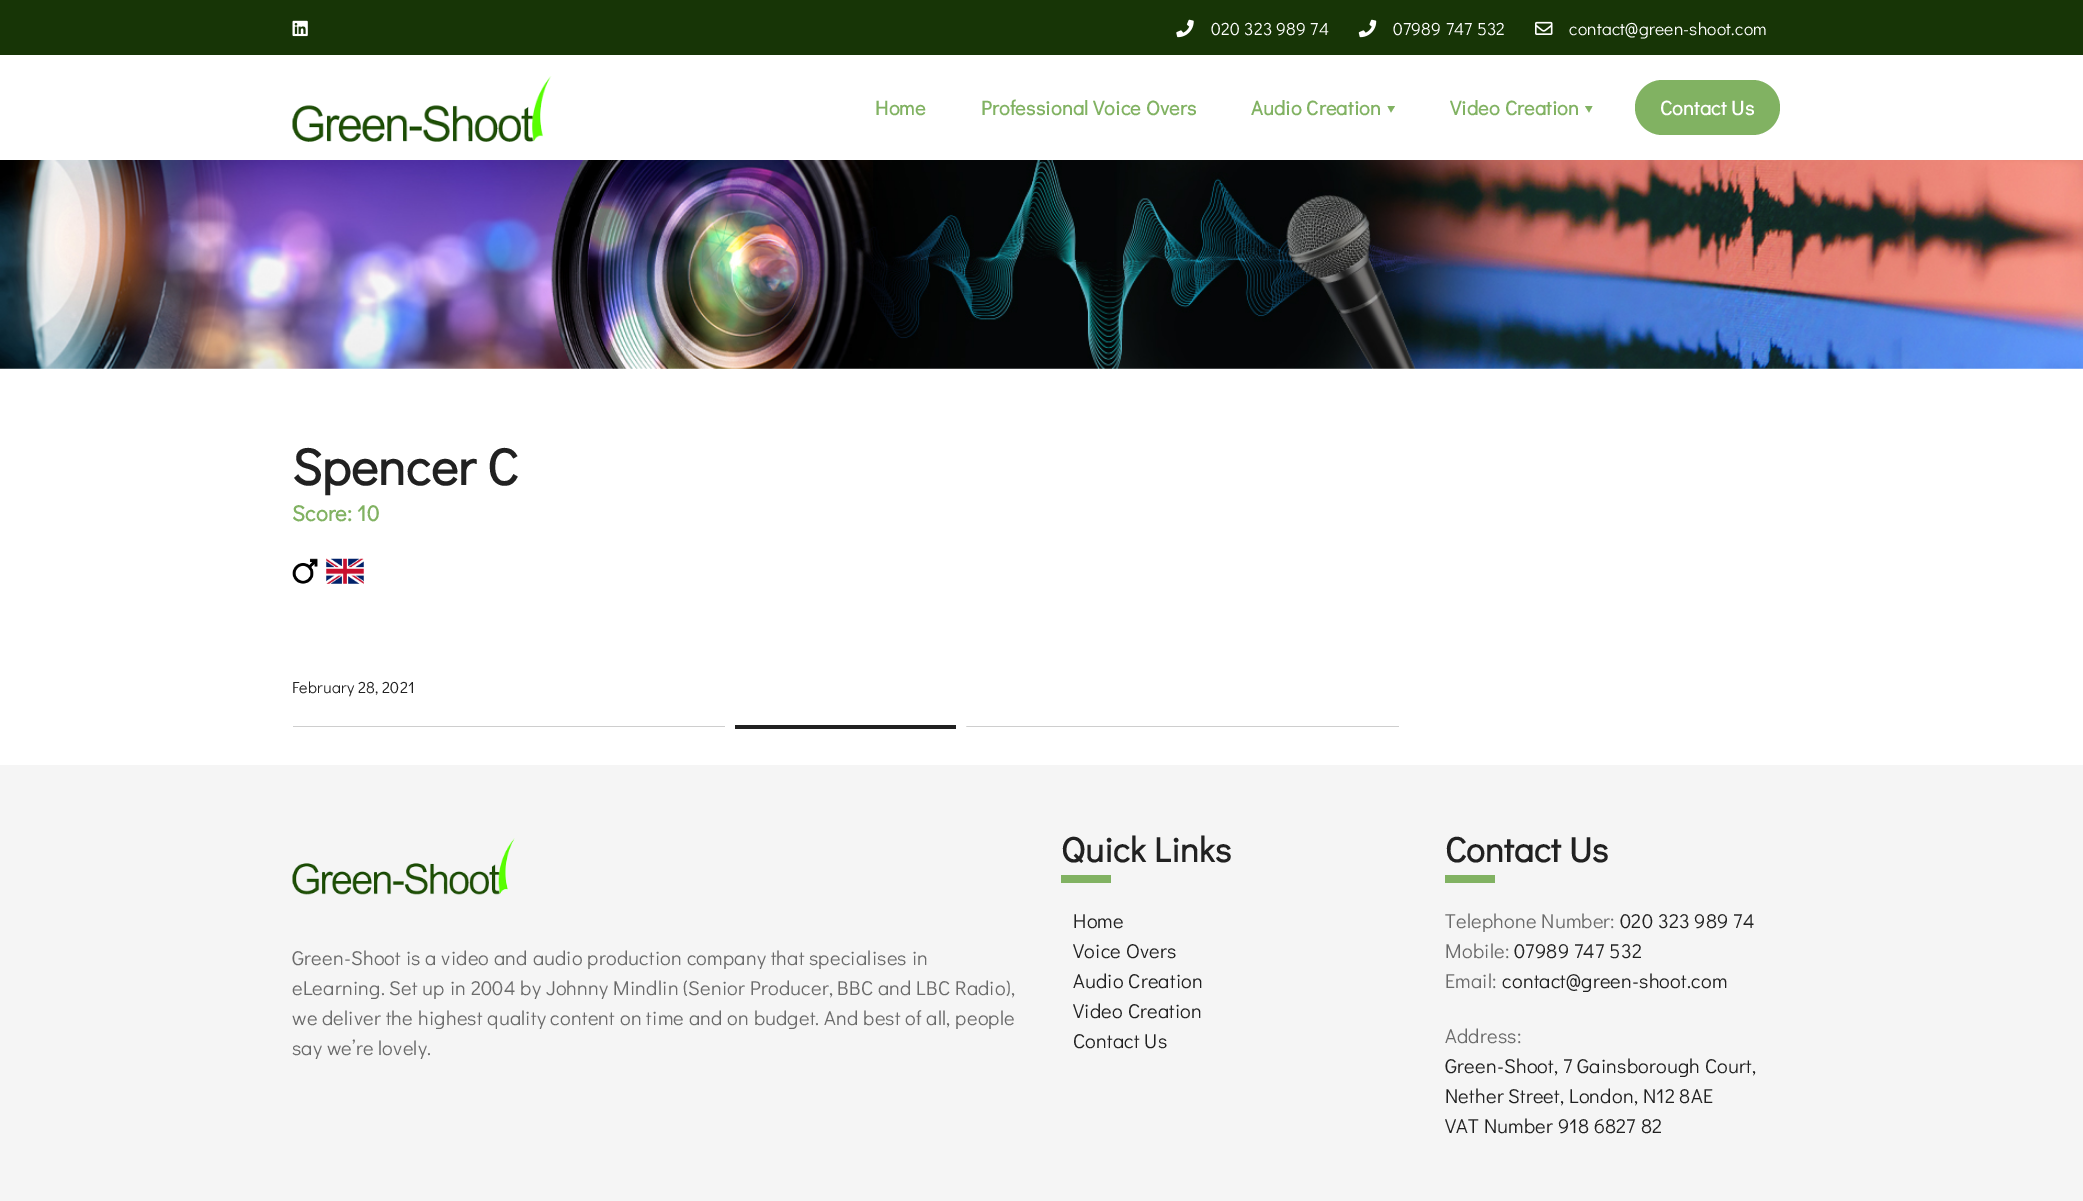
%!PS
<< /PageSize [2083 1201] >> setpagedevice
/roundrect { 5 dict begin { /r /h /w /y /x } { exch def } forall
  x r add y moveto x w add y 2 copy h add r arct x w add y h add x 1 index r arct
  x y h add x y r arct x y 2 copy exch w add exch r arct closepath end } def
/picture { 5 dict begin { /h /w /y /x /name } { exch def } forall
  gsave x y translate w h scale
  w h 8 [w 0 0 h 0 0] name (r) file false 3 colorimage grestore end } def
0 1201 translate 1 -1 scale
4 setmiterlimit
1 setgray
0 0 2083 1201 rectfill
0.09 0.208 0.024 setrgbcolor
0 0 2083 55 rectfill
(img1.rgb) 292 20 16 17 picture
(img2.rgb) 1176 19 18 19 picture
/DidactGothic-Regular [17.5 0 0 -17.5 0 0] selectfont
1 setgray
1211 35 moveto 0.22 0 (020 323 989 74) ashow
(img3.rgb) 1358 19 19 19 picture
1393 35 moveto 0.22 0 (07989 747 532) ashow
(img4.rgb) 1535 21 18 14 picture
1569 35 moveto 0.22 0 (contact@green-shoot.com) ashow
(img5.rgb) 292 76 260 66 picture
/DidactGothic-Bold [20 0 0 -20 0 0] selectfont
0.506 0.698 0.384 setrgbcolor
875 115 moveto 0.22 0 (Home) ashow
981 115 moveto 0.22 0 (Professional Voice Overs) ashow
1251 115 moveto 0.22 0 (Audio Creation) ashow
newpath 1387.5 106 moveto 1395 106 lineto 1391 112.5 lineto closepath fill
1450 115 moveto 0.22 0 (Video Creation) ashow
newpath 1585 106 moveto 1592.5 106 lineto 1589 112.5 lineto closepath fill
1635 80 145 55 27.5 roundrect fill
1 setgray
1660 115 moveto 0.22 0 (Contact Us) ashow
(img6.rgb) 0 160 2083 209 picture
/DidactGothic-Bold [51.25 0 0 -51.25 0 0] selectfont
0.129 setgray
292 485 moveto 0.22 0 (Spencer C) ashow
/DidactGothic-Bold [22 0 0 -22 0 0] selectfont
0.506 0.698 0.384 setrgbcolor
292 521 moveto 0.22 0 (Score: 10) ashow
(img7.rgb) 292 558 26 26 picture
(img8.rgb) 326 558 38 26 picture
/DidactGothic-Regular [16 0 0 -16 0 0] selectfont
0.129 setgray
292 693 moveto 0.22 0 (February 28, 2021) ashow
0.808 setgray
293 726 1106 1 rectfill
1 setgray
10 setlinewidth
730 720 231 14 rectstroke
0.129 setgray
735 725 221 4 rectfill
0.961 setgray
0 765 2083 436 rectfill
(img9.rgb) 292 838 223 57 picture
/DidactGothic-Regular [20 0 0 -20 0 0] selectfont
0.42 setgray
292 965 moveto 0.22 0 (Green-Shoot is a video and audio production company that specialises in) ashow
292 995 moveto 0.22 0 (eLearning. Set up in 2004 by Johnny Mindlin \(Senior Producer, BBC and LBC Radio\),) ashow
292 1025 moveto 0.22 0 (we deliver the highest quality content on time and on budget. And best of all, people) ashow
292 1055 moveto 0.22 0 (say we’re lovely.) ashow
/DidactGothic-Bold [35 0 0 -35 0 0] selectfont
0.129 setgray
1061 862 moveto 0.22 0 (Quick Links) ashow
0.506 0.698 0.384 setrgbcolor
1061 875 50 8 rectfill
/DidactGothic-Regular [20 0 0 -20 0 0] selectfont
0.129 setgray
1073 928 moveto 0.22 0 (Home) ashow
1073 958 moveto 0.22 0 (Voice Overs) ashow
1073 988 moveto 0.22 0 (Audio Creation) ashow
1073 1018 moveto 0.22 0 (Video Creation) ashow
1073 1048 moveto 0.22 0 (Contact Us) ashow
/DidactGothic-Bold [35 0 0 -35 0 0] selectfont
1445 862 moveto 0.22 0 (Contact Us) ashow
0.506 0.698 0.384 setrgbcolor
1445 875 50 8 rectfill
/DidactGothic-Regular [20 0 0 -20 0 0] selectfont
0.42 setgray
1445 928 moveto 0.22 0 (Telephone Number:) ashow
0.129 setgray
1620 928 moveto 0.22 0 (020 323 989 74) ashow
0.42 setgray
1445 958 moveto 0.22 0 (Mobile:) ashow
0.129 setgray
1514 958 moveto 0.22 0 (07989 747 532) ashow
0.42 setgray
1445 988 moveto 0.22 0 (Email:) ashow
0.129 setgray
1502 988 moveto 0.22 0 (contact@green-shoot.com) ashow
0.42 setgray
1445 1043 moveto 0.22 0 (Address:) ashow
0.129 setgray
1445 1073 moveto 0.22 0 (Green-Shoot, 7 Gainsborough Court,) ashow
1445 1103 moveto 0.22 0 (Nether Street, London, N12 8AE) ashow
1445 1133 moveto 0.22 0 (VAT Number 918 6827 82) ashow
showpage
